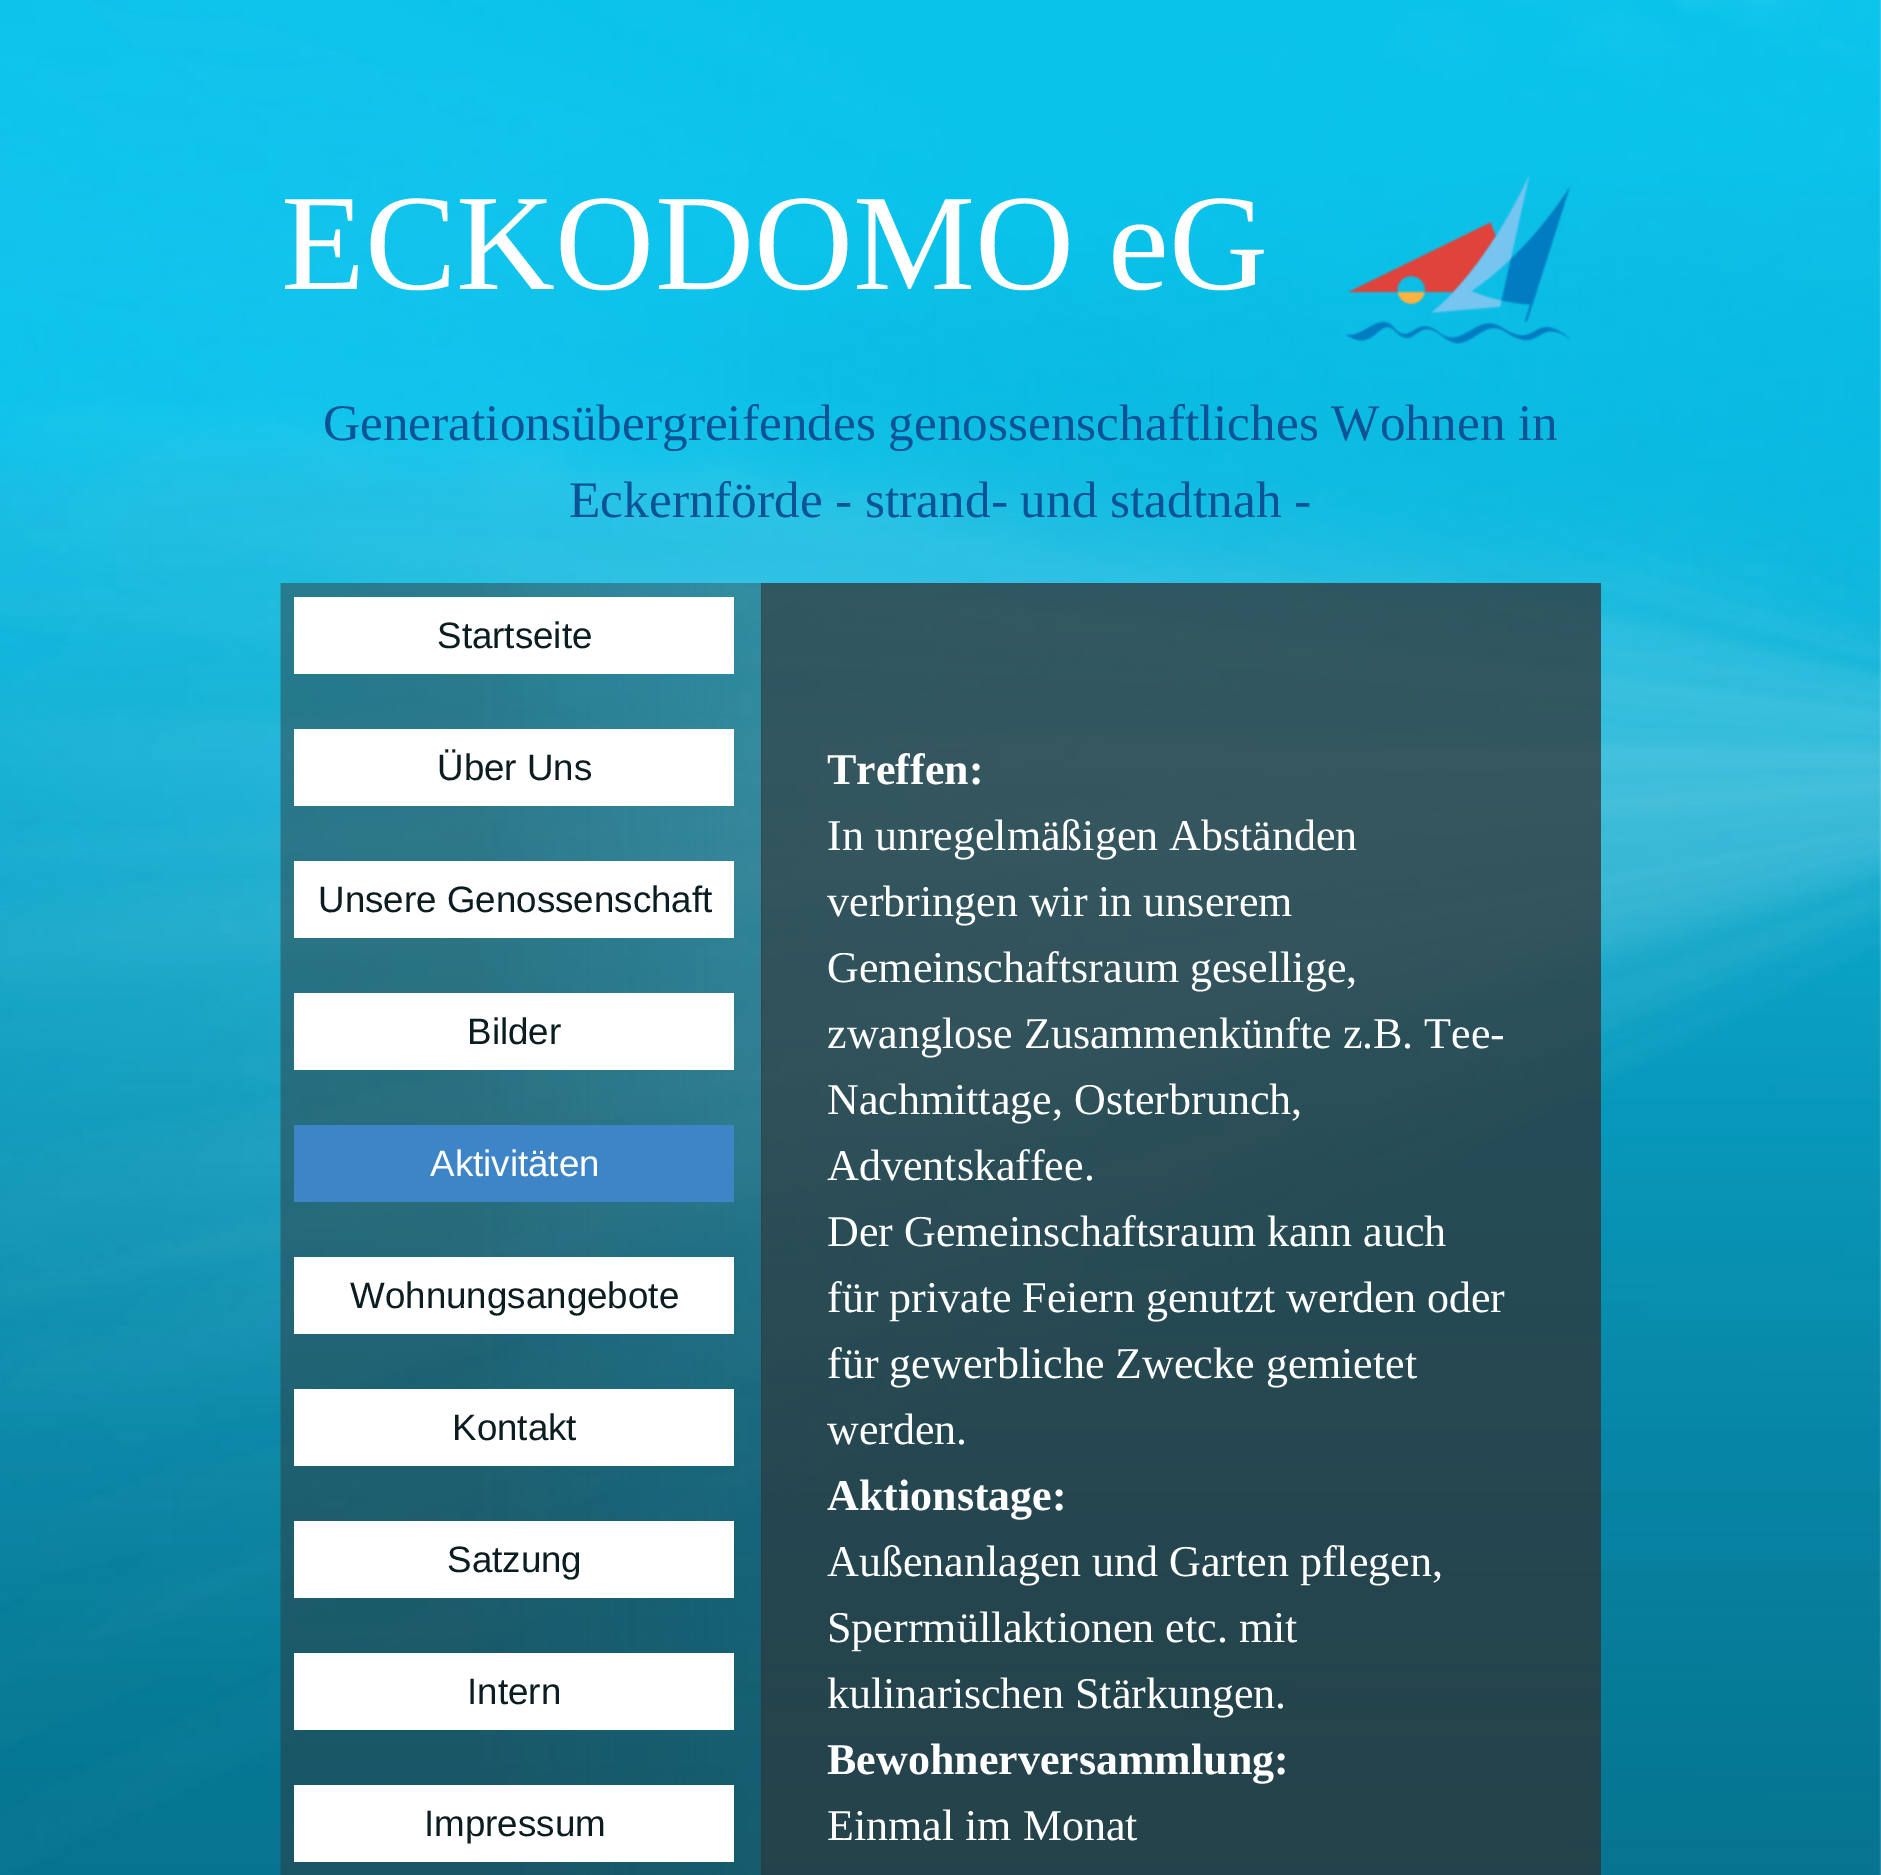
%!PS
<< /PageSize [1881 1875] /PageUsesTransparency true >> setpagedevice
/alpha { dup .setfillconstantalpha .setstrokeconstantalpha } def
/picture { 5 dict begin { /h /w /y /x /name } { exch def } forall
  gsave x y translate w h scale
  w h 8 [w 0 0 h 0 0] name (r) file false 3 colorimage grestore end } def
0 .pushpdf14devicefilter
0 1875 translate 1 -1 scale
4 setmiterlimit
1 setgray
0 0 1881 1875 rectfill
(img1.rgb) 0 0 1881 1875 picture
/LiberationSerif-Regular [137.25 0 0 -137.25 0 0] selectfont
281 289 moveto (ECKODOMO eG) show
(img2.rgb) 1345 174 227 170 picture
/LiberationSerif-Regular [51.3 0 0 -51.3 0 0] selectfont
0.043 0.325 0.58 setrgbcolor
323 440 moveto (Generationsübergreifendes genossenschaftliches Wohnen in) show
569 517 moveto (Eckernförde - strand- und stadtnah -) show
0.73 alpha
0.188 0.188 0.192 setrgbcolor
761 583 840 1292 rectfill
1 alpha
(img3.rgb) 280 583 482 1292 picture
1 setgray
294 597 440 77 rectfill
/LiberationSans-Regular [36.75 0 0 -36.75 0 0] selectfont
0.047 0.114 0.129 setrgbcolor
437 648 moveto (Startseite) show
1 setgray
294 729 440 77 rectfill
0.047 0.114 0.129 setrgbcolor
437 780 moveto (Über Uns) show
1 setgray
294 861 440 77 rectfill
0.047 0.114 0.129 setrgbcolor
318 912 moveto (Unsere Genossenschaft) show
1 setgray
294 993 440 77 rectfill
0.047 0.114 0.129 setrgbcolor
467 1044 moveto (Bilder) show
0.239 0.522 0.776 setrgbcolor
294 1125 440 77 rectfill
1 setgray
430 1176 moveto (Aktivitäten) show
294 1257 440 77 rectfill
0.047 0.114 0.129 setrgbcolor
350 1308 moveto (Wohnungsangebote) show
1 setgray
294 1389 440 77 rectfill
0.047 0.114 0.129 setrgbcolor
452 1440 moveto (Kontakt) show
1 setgray
294 1521 440 77 rectfill
0.047 0.114 0.129 setrgbcolor
447 1572 moveto (Satzung) show
1 setgray
294 1653 440 77 rectfill
0.047 0.114 0.129 setrgbcolor
467 1704 moveto (Intern) show
1 setgray
294 1785 440 77 rectfill
0.047 0.114 0.129 setrgbcolor
424 1836 moveto (Impressum) show
/LiberationSerif-Bold [44 0 0 -44 0 0] selectfont
1 setgray
827 784 moveto (Treffen:) show
/LiberationSerif-Regular [44 0 0 -44 0 0] selectfont
827 850 moveto (In unregelmäßigen Abständen) show
827 916 moveto (verbringen wir in unserem) show
827 982 moveto (Gemeinschaftsraum gesellige,) show
827 1048 moveto (zwanglose Zusammenkünfte z.B. Tee-) show
827 1114 moveto (Nachmittage, Osterbrunch,) show
827 1180 moveto (Adventskaffee.) show
827 1246 moveto (Der Gemeinschaftsraum kann auch) show
827 1312 moveto (für private Feiern genutzt werden oder) show
827 1378 moveto (für gewerbliche Zwecke gemietet) show
827 1444 moveto (werden.) show
/LiberationSerif-Bold [44 0 0 -44 0 0] selectfont
827 1510 moveto (Aktionstage:) show
/LiberationSerif-Regular [44 0 0 -44 0 0] selectfont
827 1576 moveto (Außenanlagen und Garten pflegen,) show
827 1642 moveto (Sperrmüllaktionen etc. mit) show
827 1708 moveto (kulinarischen Stärkungen.) show
/LiberationSerif-Bold [44 0 0 -44 0 0] selectfont
827 1774 moveto (Bewohnerversammlung:) show
/LiberationSerif-Regular [44 0 0 -44 0 0] selectfont
827 1840 moveto (Einmal im Monat) show
.poppdf14devicefilter showpage
